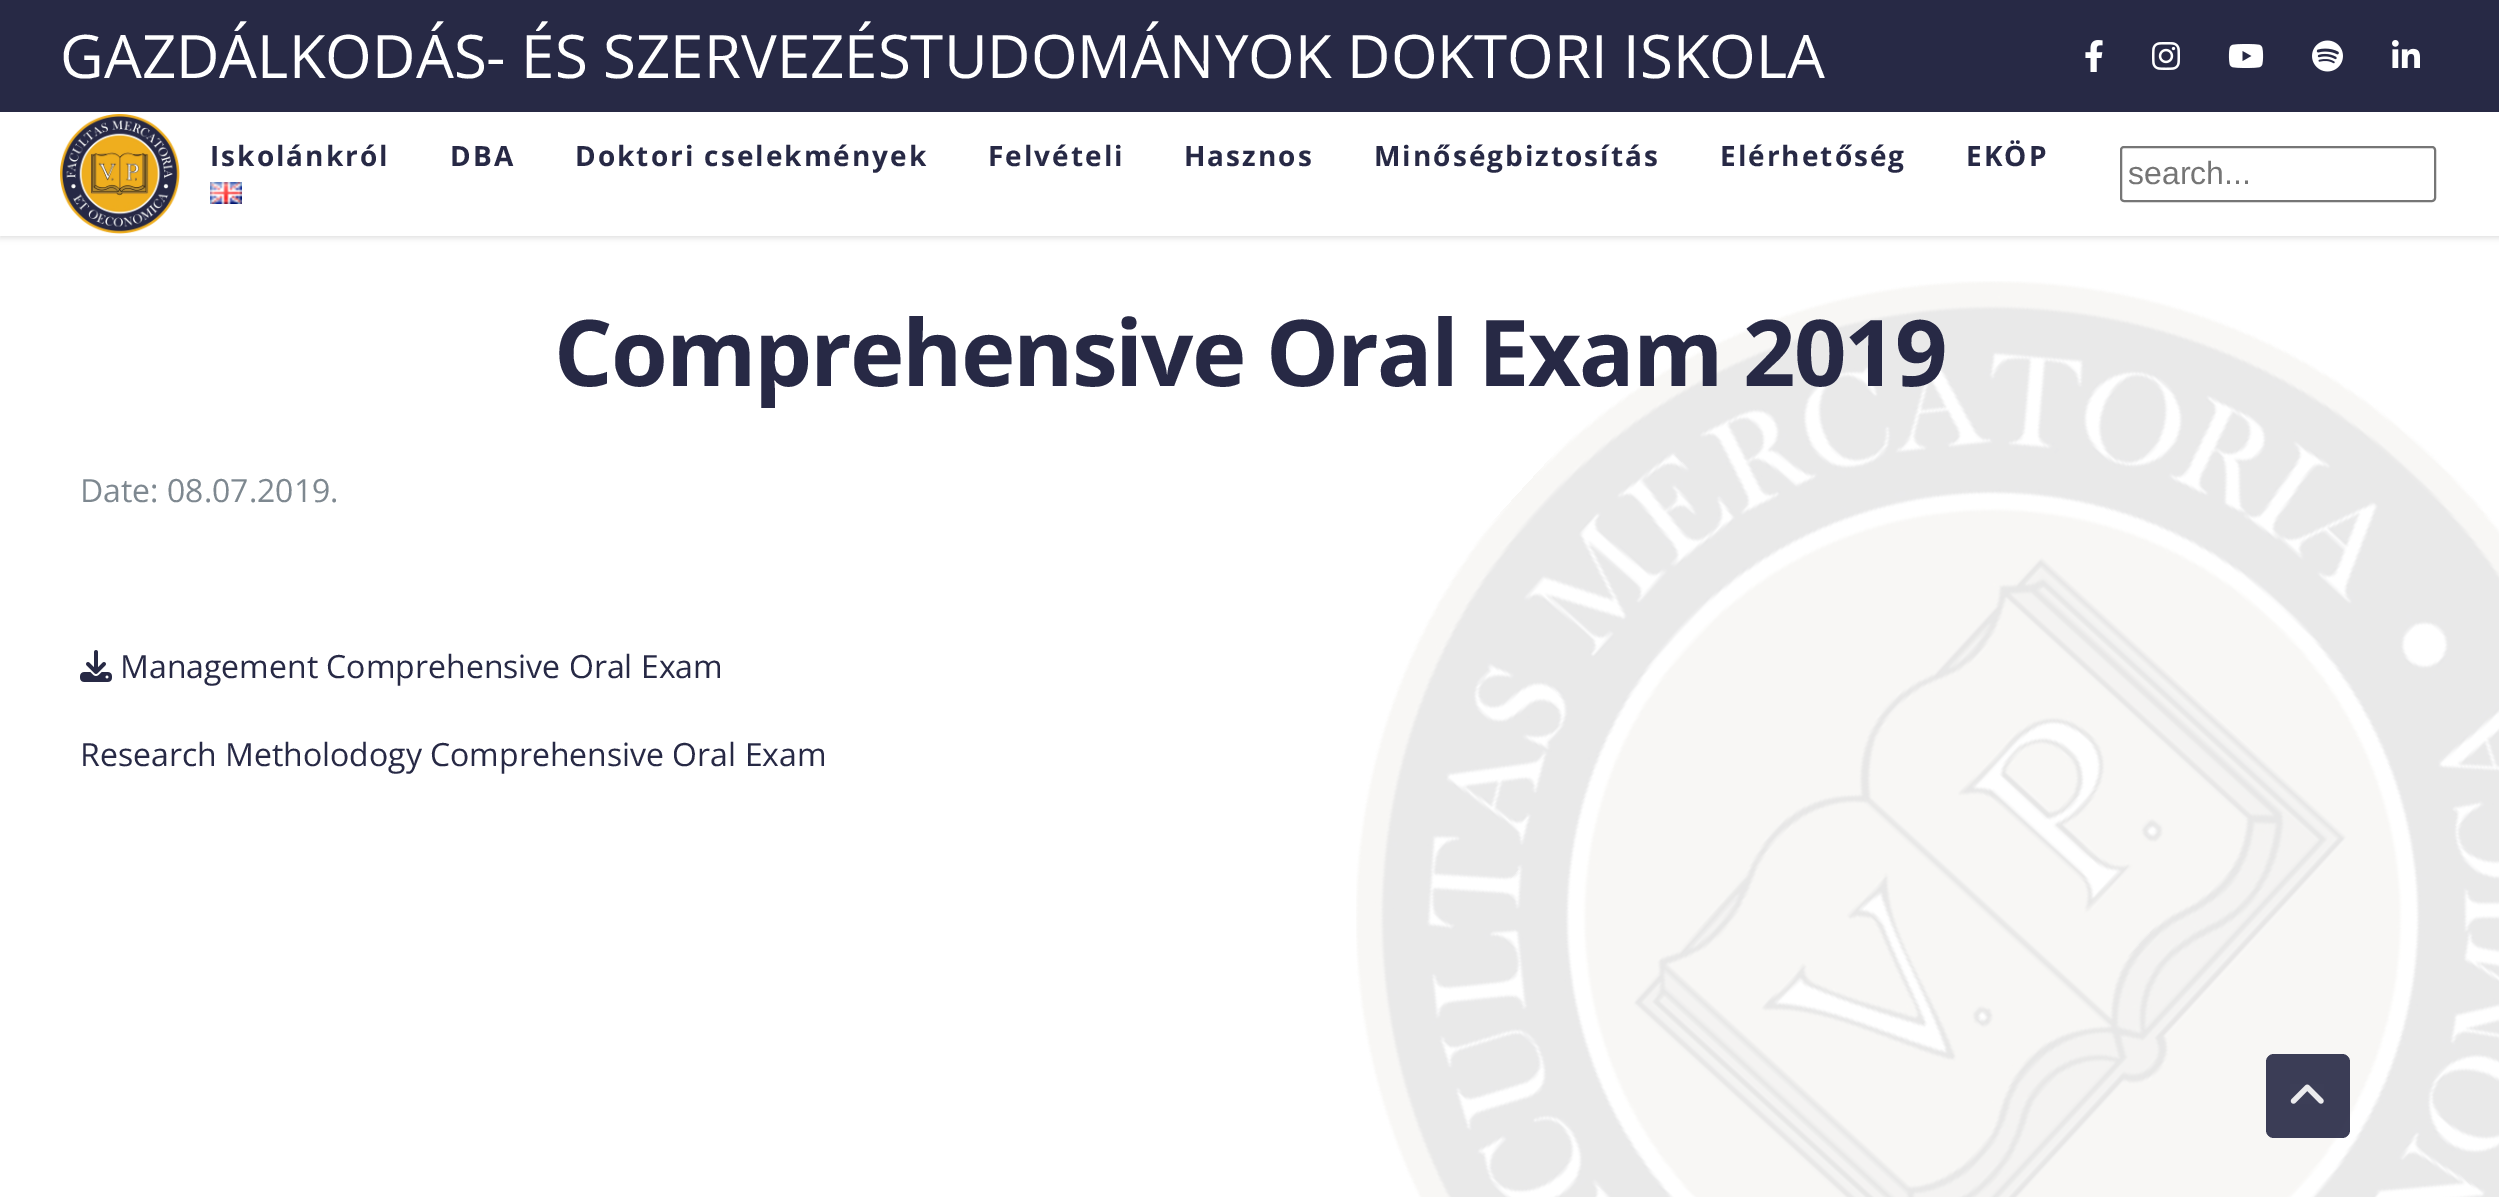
%!PS
<< /PageSize [2499 1197] /PageUsesTransparency true >> setpagedevice
/alpha { dup .setfillconstantalpha .setstrokeconstantalpha } def
/roundrect { 5 dict begin { /r /h /w /y /x } { exch def } forall
  x r add y moveto x w add y 2 copy h add r arct x w add y h add x 1 index r arct
  x y h add x y r arct x y 2 copy exch w add exch r arct closepath end } def
/shadow { 12 dict begin { /a /b /q /h /w /y /x } { exch def } forall gsave /was 0 def
  9 -2 -9 { dup b mul 4 div /e exch def 1 sub .425 mul 2.718 exch exp 1 add a .99 .min exch div /now exch def
    1 1 now sub 1 was sub div sub alpha /was now def
    w h .min e 2 mul add 0 gt { x e sub y e sub w e 2 mul add h e 2 mul add
      q e add b .6 mul add w h .min 2 div e add .min 0 .max roundrect fill } if } for grestore end } def
/picture { 5 dict begin { /h /w /y /x /name } { exch def } forall
  gsave x y translate w h scale
  w h 8 [w 0 0 h 0 0] name (r) file false 3 colorimage grestore end } def
0 .pushpdf14devicefilter
0 1197 translate 1 -1 scale
4 setmiterlimit
1 setgray
0 0 2499 1197 rectfill
0.153 0.161 0.271 setrgbcolor
0 0 2499 112 rectfill
/OpenSans-Regular [60 0 0 -60 0 0] selectfont
1 setgray
60 78 moveto (GAZDÁLKODÁS- ÉS SZERVEZÉSTUDOMÁNYOK DOKTORI ISKOLA) show
(img1.rgb) 2085 40 18 32 picture
(img2.rgb) 2152 42 28 28 picture
(img3.rgb) 2228 44 36 24 picture
(img4.rgb) 2312 40 31 32 picture
(img5.rgb) 2392 40 28 28 picture
gsave
newpath 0 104 moveto 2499 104 lineto 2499 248 lineto 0 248 lineto closepath 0 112 moveto 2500 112 lineto 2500 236 lineto 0 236 lineto closepath eoclip newpath
0 setgray
0 114 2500 124 0 3 0.12 shadow
grestore
(img6.rgb) 60 114 120 120 picture
/OpenSans-Bold [28 0 0 -28 0 0] selectfont
0.153 0.161 0.271 setrgbcolor
210 166 moveto 2 0 (Iskolánkról) ashow
450 166 moveto 2 0 (DBA) ashow
575 166 moveto 2 0 (Doktori cselekmények) ashow
988 166 moveto 2 0 (Felvételi) ashow
1184 166 moveto 2 0 (Hasznos) ashow
1374 166 moveto 2 0 (Minőségbiztosítás) ashow
1720 166 moveto 2 0 (Elérhetőség) ashow
1966 166 moveto 2 0 (EKÖP) ashow
(img7.rgb) 210 182 32 22 picture
0.463 setgray
2 setlinewidth
2121 147 314 54 3 roundrect stroke
/LiberationSans-Regular [32 0 0 -32 0 0] selectfont
0.459 setgray
2128 184 moveto (search...) show
(img8.rgb) 1356 281 1143 916 picture
/OpenSans-Bold [92 0 0 -92 0 0] selectfont
0.153 0.161 0.271 setrgbcolor
554 386 moveto -2 0 (Comprehensive Oral Exam 2019) ashow
/OpenSans-Regular [32 0 0 -32 0 0] selectfont
0.494 0.533 0.565 setrgbcolor
80 502 moveto (Date: 08.07.2019.) show
(img9.rgb) 80 650 32 32 picture
0.153 0.161 0.271 setrgbcolor
120 678 moveto (Management Comprehensive Oral Exam) show
80 766 moveto (Research Metholodogy Comprehensive Oral Exam) show
0.9 alpha
2266 1054 84 84 8 roundrect fill
1 alpha
(img10.rgb) 2290 1084 34 20 picture
.poppdf14devicefilter showpage
